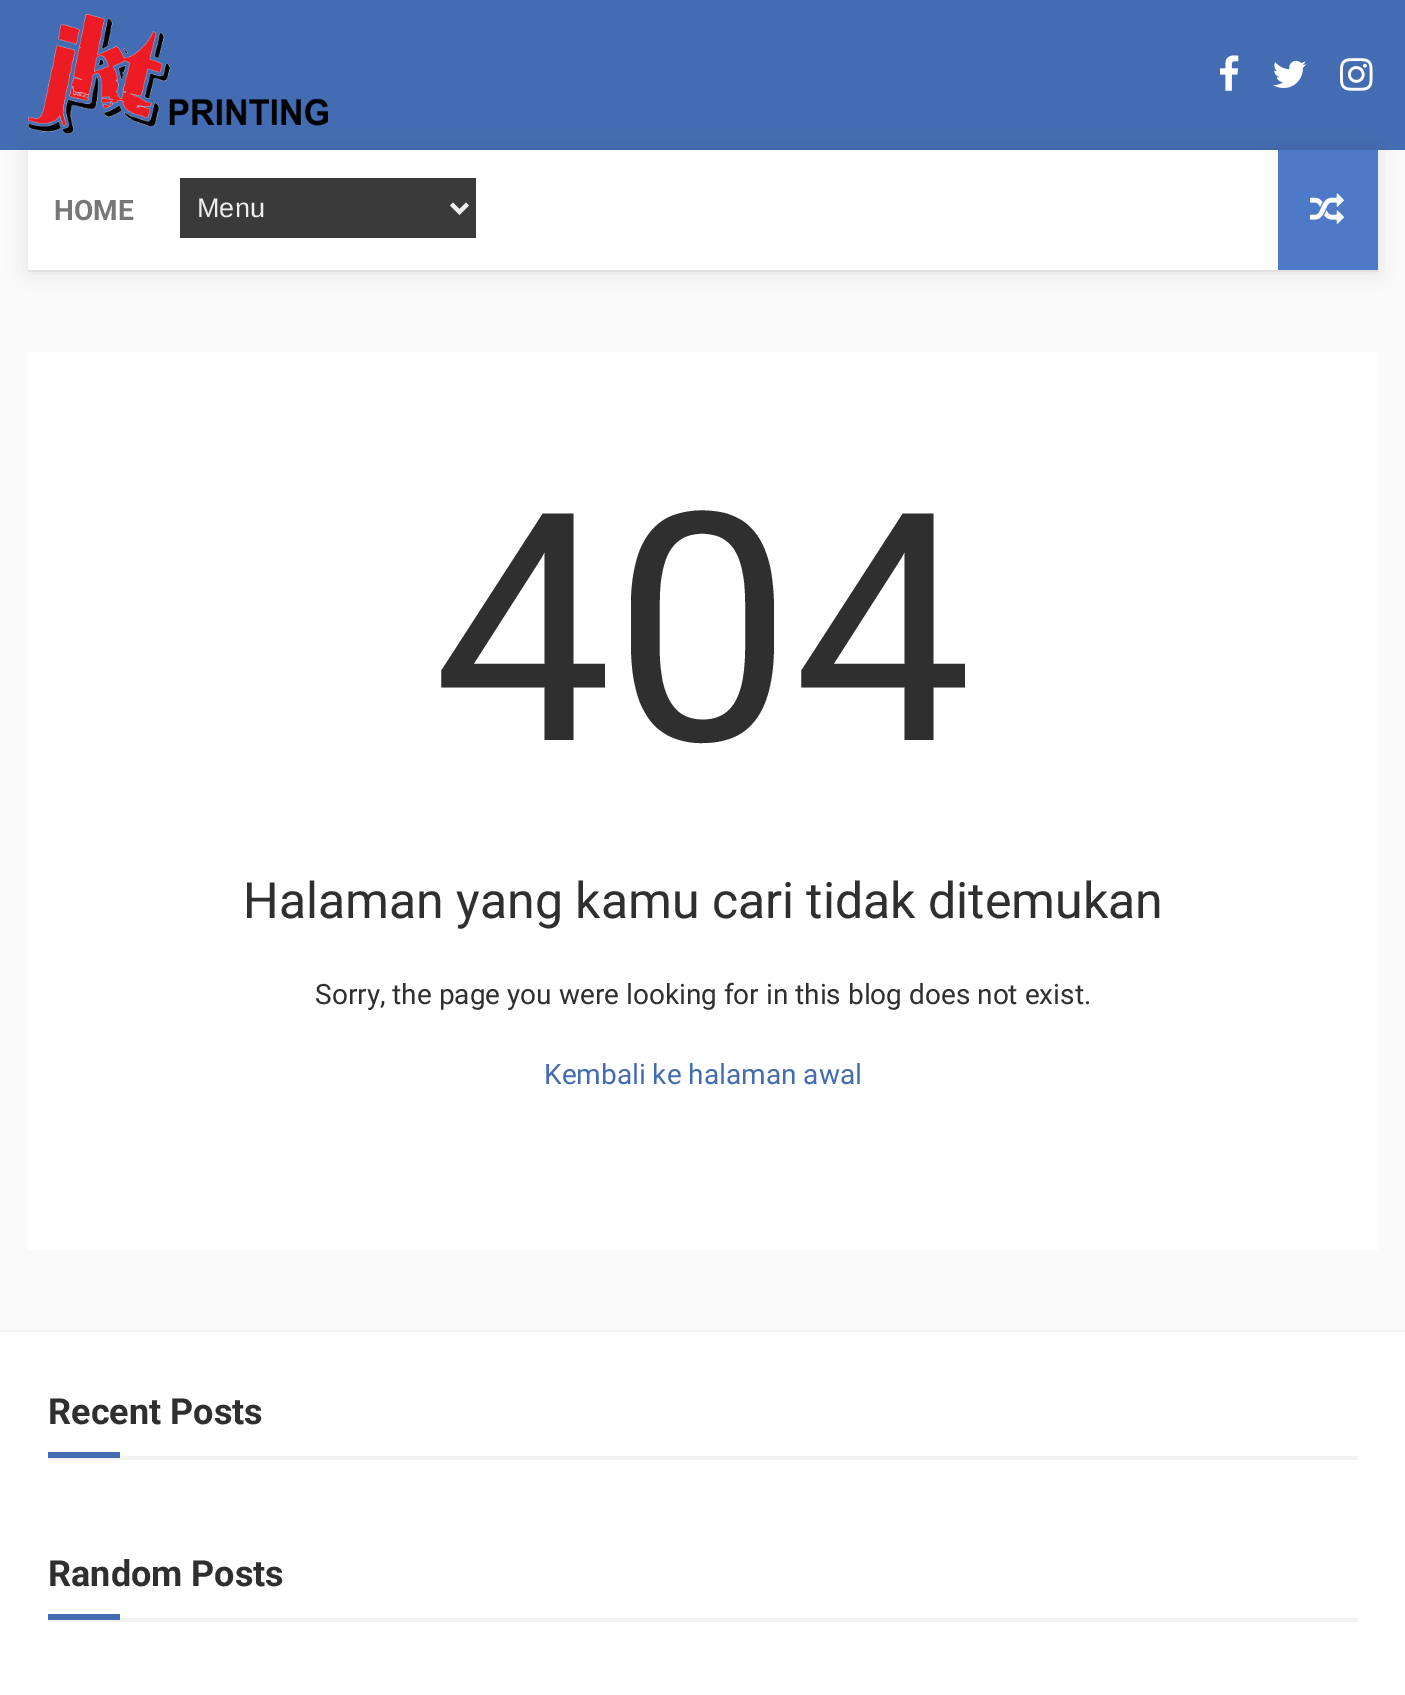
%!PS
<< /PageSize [1405 1695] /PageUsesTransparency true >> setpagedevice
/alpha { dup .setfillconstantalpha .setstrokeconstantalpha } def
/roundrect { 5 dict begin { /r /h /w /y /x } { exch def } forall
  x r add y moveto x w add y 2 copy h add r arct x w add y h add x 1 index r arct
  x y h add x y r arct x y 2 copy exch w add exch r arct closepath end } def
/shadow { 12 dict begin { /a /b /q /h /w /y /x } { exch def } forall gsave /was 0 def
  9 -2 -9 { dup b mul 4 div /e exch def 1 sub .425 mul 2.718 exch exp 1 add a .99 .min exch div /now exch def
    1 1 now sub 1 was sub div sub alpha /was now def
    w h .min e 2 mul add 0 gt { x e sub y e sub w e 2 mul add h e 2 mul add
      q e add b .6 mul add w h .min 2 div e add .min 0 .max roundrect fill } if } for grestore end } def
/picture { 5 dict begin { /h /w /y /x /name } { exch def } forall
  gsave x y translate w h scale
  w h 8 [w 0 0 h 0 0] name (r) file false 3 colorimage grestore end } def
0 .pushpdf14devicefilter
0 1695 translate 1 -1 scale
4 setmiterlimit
0.98 setgray
0 0 1405 1695 rectfill
0.267 0.424 0.702 setrgbcolor
0 0 1405 150 rectfill
(img1.rgb) 28 14 300 120 picture
(img2.rgb) 1220 55 19 36 picture
(img3.rgb) 1273 60 34 28 picture
(img4.rgb) 1340 58 33 33 picture
0 setgray
28 150 1350 122 0 10 0.1 shadow
0.882 setgray
28 270 1350 2 rectfill
1 setgray
28 150 1250 120 rectfill
/Roboto-Bold [28 0 0 -28 0 0] selectfont
0.467 setgray
54 220 moveto (HOME) show
0.227 setgray
180 178 296 60 rectfill
0.933 setgray
4 setlinewidth
newpath 451.5 204 moveto 459.5 212 lineto 467.5 204 lineto stroke
/LiberationSans-Regular [27 0 0 -27 0 0] selectfont
197 217 moveto (Menu) show
0.306 0.475 0.78 setrgbcolor
1278 150 100 120 rectfill
(img5.rgb) 1310 193 34 31 picture
1 setgray
28 352 1350 898 rectfill
/Roboto-Regular [320 0 0 -320 0 0] selectfont
0.184 setgray
433 740 moveto (404) show
/Roboto-Regular [50 0 0 -50 0 0] selectfont
243 918 moveto (Halaman yang kamu cari tidak ditemukan) show
/Roboto-Regular [28 0 0 -28 0 0] selectfont
315 1004 moveto (Sorry, the page you were looking for in this blog does not exist.) show
0.267 0.424 0.702 setrgbcolor
544 1084 moveto (Kembali ke halaman awal) show
1 setgray
0 1332 1405 363 rectfill
0.953 setgray
0 1330 1405 2 rectfill
0.949 setgray
48 1456 1310 4 rectfill
/Roboto-Bold [36 0 0 -36 0 0] selectfont
0.184 setgray
48 1424 moveto (Recent Posts) show
0.267 0.424 0.702 setrgbcolor
48 1452 72 6 rectfill
0.949 setgray
48 1618 1310 4 rectfill
0.184 setgray
48 1586 moveto (Random Posts) show
0.267 0.424 0.702 setrgbcolor
48 1614 72 6 rectfill
.poppdf14devicefilter showpage
